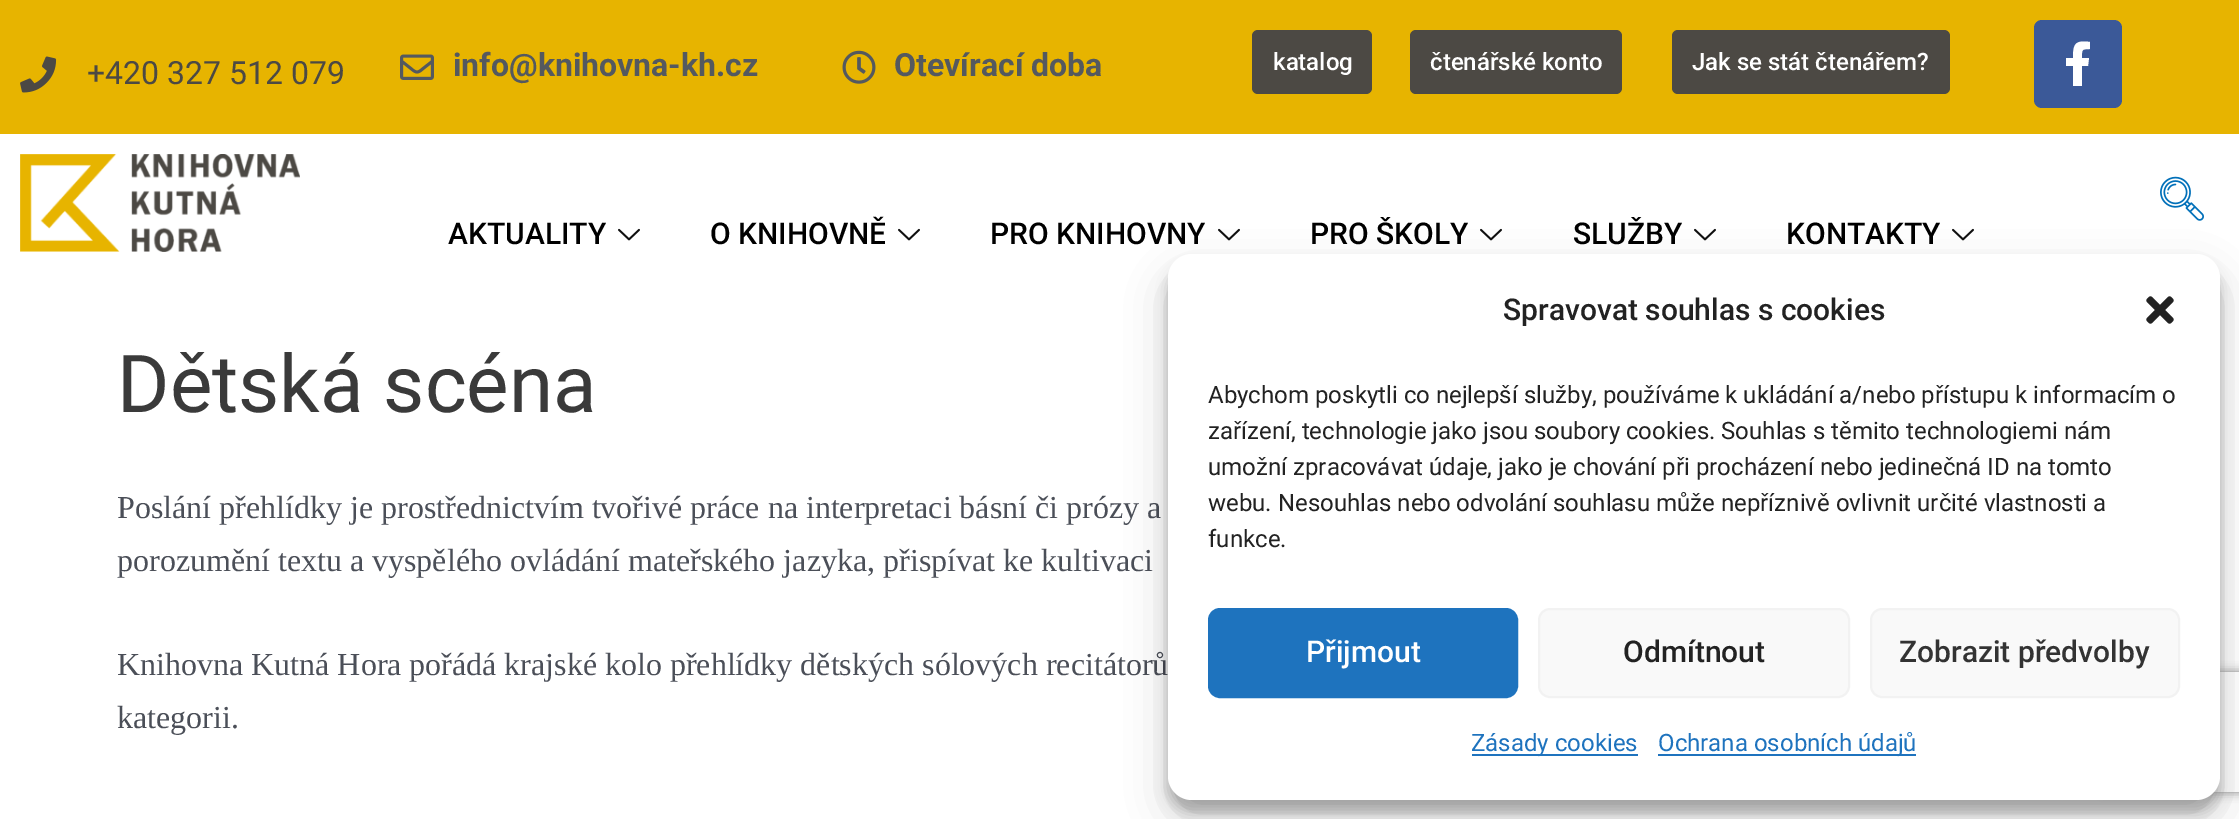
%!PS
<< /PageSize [2239 819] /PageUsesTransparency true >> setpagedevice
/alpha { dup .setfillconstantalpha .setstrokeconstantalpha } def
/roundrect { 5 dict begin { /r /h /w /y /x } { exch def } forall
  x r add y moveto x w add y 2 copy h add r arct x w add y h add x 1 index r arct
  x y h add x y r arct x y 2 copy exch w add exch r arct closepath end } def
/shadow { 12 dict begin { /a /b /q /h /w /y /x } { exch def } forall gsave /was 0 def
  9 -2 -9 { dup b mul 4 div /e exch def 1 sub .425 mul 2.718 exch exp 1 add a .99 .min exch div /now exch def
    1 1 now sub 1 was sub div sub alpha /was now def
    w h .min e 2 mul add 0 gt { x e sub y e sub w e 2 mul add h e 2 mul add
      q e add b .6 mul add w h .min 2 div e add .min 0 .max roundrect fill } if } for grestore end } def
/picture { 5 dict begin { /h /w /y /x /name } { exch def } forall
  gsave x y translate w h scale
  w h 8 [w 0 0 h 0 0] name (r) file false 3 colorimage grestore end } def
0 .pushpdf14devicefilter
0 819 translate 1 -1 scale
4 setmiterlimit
1 setgray
0 0 2239 819 rectfill
0.906 0.706 0 setrgbcolor
0 0 2239 134 rectfill
(img1.rgb) 20 56 37 37 picture
/Roboto-Regular [32 0 0 -32 0 0] selectfont
0.298 0.286 0.267 setrgbcolor
87 84 moveto (+420 327 512 079) show
(img2.rgb) 400 54 34 26 picture
/Roboto-Bold [32 0 0 -32 0 0] selectfont
0.329 0.349 0.373 setrgbcolor
453 76 moveto (info@knihovna-kh.cz) show
(img3.rgb) 842 50 34 34 picture
894 76 moveto (Otevírací doba) show
0.298 0.286 0.267 setrgbcolor
1252 30 120 64 6 roundrect fill
/Roboto-Medium [24 0 0 -24 0 0] selectfont
1 setgray
1273 70 moveto (katalog) show
0.298 0.286 0.267 setrgbcolor
1410 30 212 64 6 roundrect fill
1 setgray
1430 70 moveto (čtenářské konto) show
0.298 0.286 0.267 setrgbcolor
1672 30 278 64 6 roundrect fill
1 setgray
1692 70 moveto (Jak se stát čtenářem?) show
0.231 0.349 0.596 setrgbcolor
2034 20 88 88 8 roundrect fill
1 setgray
newpath 2088 66 moveto 2082 66 lineto 2082 86 lineto 2073 86 lineto 2073 66 lineto 2066 66 lineto 2066 58 lineto 2073 58 lineto 2073 44 2075 40 2090 42 curveto 2090 49 lineto 2081 49 2082 50 2082 58 curveto 2089 58 lineto closepath fill
(img4.rgb) 20 154 280 98 picture
(img5.rgb) 2160 176 44 45 picture
/Roboto-Medium [30 0 0 -30 0 0] selectfont
0 setgray
448 244 moveto (AKTUALITY) show
(img6.rgb) 618 228 22 13 picture
710 244 moveto (O KNIHOVNĚ) show
(img6.rgb) 898 228 22 13 picture
990 244 moveto (PRO KNIHOVNY) show
(img6.rgb) 1218 228 22 13 picture
1310 244 moveto (PRO ŠKOLY) show
(img6.rgb) 1480 228 22 13 picture
1573 244 moveto (SLUŽBY) show
(img6.rgb) 1694 228 22 13 picture
1786 244 moveto (KONTAKTY) show
(img6.rgb) 1952 228 22 13 picture
/Roboto-Regular [80 0 0 -80 0 0] selectfont
0.227 setgray
117 412 moveto (Dětská scéna) show
/LiberationSerif-Regular [32 0 0 -32 0 0] selectfont
0.294 0.31 0.345 setrgbcolor
117 518 moveto (Poslání přehlídky je prostřednictvím tvořivé práce na interpretaci básní či prózy a) show
117 571 moveto (porozumění textu a vyspělého ovládání mateřského jazyka, přispívat ke kultivaci) show
117 675 moveto (Knihovna Kutná Hora pořádá krajské kolo přehlídky dětských sólových recitátorů) show
117 728 moveto (kategorii.) show
0 setgray
1168 266 1052 546 24 6 0.23 shadow
1168 274 1052 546 24 20 0.19 shadow
gsave
newpath 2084 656 moveto 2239 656 lineto 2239 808 lineto 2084 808 lineto closepath 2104 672 moveto 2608 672 lineto 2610 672 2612 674 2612 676 curveto 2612 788 lineto 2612 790 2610 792 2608 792 curveto 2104 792 lineto 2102 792 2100 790 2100 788 curveto 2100 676 lineto 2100 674 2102 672 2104 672 curveto closepath eoclip newpath
0.502 setgray
2100 672 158 120 4 5 1 shadow
grestore
1 setgray
1168 254 1052 546 24 roundrect fill
/Roboto-Medium [30 0 0 -30 0 0] selectfont
0.133 setgray
1503 320 moveto (Spravovat souhlas s cookies) show
(img7.rgb) 2146 296 28 28 picture
/Roboto-Regular [24 0 0 -24 0 0] selectfont
1208 403 moveto (Abychom poskytli co nejlepší služby, používáme k ukládání a/nebo přístupu k informacím o) show
1208 439 moveto (zařízení, technologie jako jsou soubory cookies. Souhlas s těmito technologiemi nám) show
1208 475 moveto (umožní zpracovávat údaje, jako je chování při procházení nebo jedinečná ID na tomto) show
1208 511 moveto (webu. Nesouhlas nebo odvolání souhlasu může nepříznivě ovlivnit určité vlastnosti a) show
1208 547 moveto (funkce.) show
0.118 0.451 0.745 setrgbcolor
1209 609 308 88 11 roundrect gsave fill grestore
2 setlinewidth
stroke
/Roboto-Medium [30 0 0 -30 0 0] selectfont
1 setgray
1306 662 moveto (Přijmout) show
0.976 setgray
1539 609 310 88 11 roundrect gsave fill grestore
0.949 setgray
stroke
0.133 setgray
1623 662 moveto (Odmítnout) show
0.976 setgray
1871 609 308 88 11 roundrect gsave fill grestore
0.949 setgray
stroke
0.2 setgray
1899 662 moveto (Zobrazit předvolby) show
0.118 0.451 0.745 setrgbcolor
1472 754 166 2 rectfill
/Roboto-Regular [24 0 0 -24 0 0] selectfont
1471 751 moveto (Zásady cookies) show
1658 754 258 2 rectfill
1658 751 moveto (Ochrana osobních údajů) show
.poppdf14devicefilter showpage
